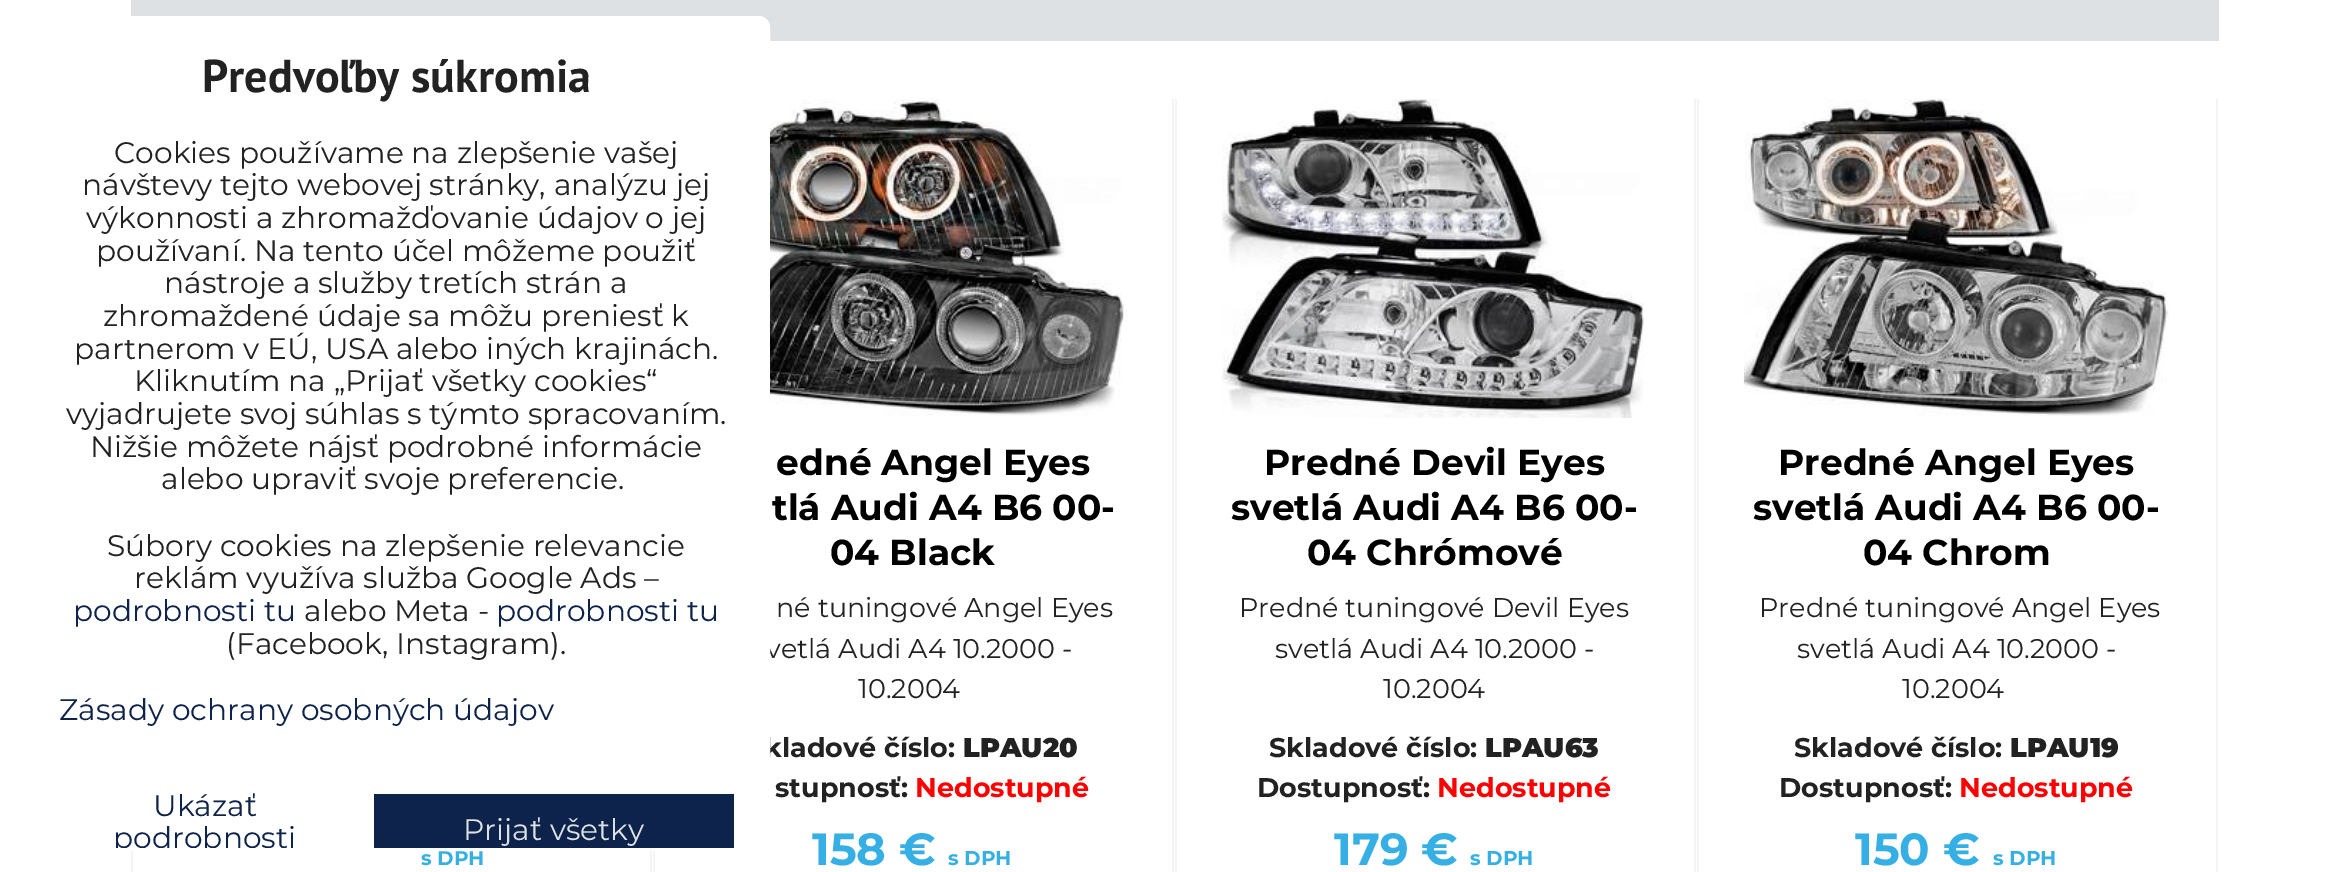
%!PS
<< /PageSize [2345 872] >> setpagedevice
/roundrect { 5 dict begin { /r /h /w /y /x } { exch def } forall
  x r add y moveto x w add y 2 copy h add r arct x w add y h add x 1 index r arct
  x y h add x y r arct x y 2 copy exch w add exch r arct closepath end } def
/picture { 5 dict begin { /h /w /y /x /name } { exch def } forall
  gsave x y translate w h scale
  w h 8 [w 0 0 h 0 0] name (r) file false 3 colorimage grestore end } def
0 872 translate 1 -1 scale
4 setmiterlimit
1 setgray
0 0 2345 872 rectfill
0.867 0.882 0.89 setrgbcolor
131 0 2088 41 rectfill
/Montserrat-Thin [20 0 0 -20 0 0] selectfont
0.208 0.686 0.894 setrgbcolor
421 865 moveto (s DPH) show
/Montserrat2-Thin [27 0 0 -27 0 0] selectfont
0.133 setgray
766 658 moveto (vetlá Audi A4 10.2000 -) show
/Montserrat-Thin [27 0 0 -27 0 0] selectfont
764 757 moveto (kladové číslo:) show
1 setgray
24 17 745 833 10 roundrect gsave fill grestore
2 setlinewidth
stroke
/PTSans-Bold [46 0 0 -46 0 0] selectfont
0.133 setgray
202 92 moveto (Predvoľby súkromia) show
/Montserrat2-Thin [29.7 0 0 -29.7 0 0] selectfont
114 163 moveto (Cookies používame na zlepšenie vašej) show
82 195 moveto (návštevy tejto webovej stránky, analýzu jej) show
86 228 moveto (výkonnosti a zhromažďovanie údajov o jej) show
96 261 moveto (používaní. Na tento účel môžeme použiť) show
164 293 moveto (nástroje a služby tretích strán a) show
103 326 moveto (zhromaždené údaje sa môžu preniesť k) show
74 359 moveto (partnerom v EÚ, USA alebo iných krajinách.) show
134 391 moveto (Kliknutím na „Prijať všetky cookies“) show
66 424 moveto (vyjadrujete svoj súhlas s týmto spracovaním.) show
90 457 moveto (Nižšie môžete nájsť podrobné informácie) show
161 489 moveto (alebo upraviť svoje preferencie.) show
107 556 moveto (Súbory cookies na zlepšenie relevancie) show
134 588 moveto (reklám využíva služba Google Ads –) show
0.055 0.137 0.294 setrgbcolor
73 621 moveto (podrobnosti tu) show
0.133 setgray
304 621 moveto (alebo Meta -) show
0.055 0.137 0.294 setrgbcolor
496 621 moveto (podrobnosti tu) show
0.133 setgray
226 654 moveto (\(Facebook, Instagram\).) show
0.055 0.137 0.294 setrgbcolor
59 720 moveto (Zásady ochrany osobných údajov) show
153 816 moveto (Ukázať) show
gsave
25 18 742 830 9 roundrect clip newpath
113 848 moveto (podrobnosti) show
grestore
374 794 360 54 rectfill
0.867 0.882 0.89 setrgbcolor
463 840 moveto (Prijať všetky) show
0.957 0.957 0.961 setrgbcolor
650 851 2 21 rectfill
131 851 2 21 rectfill
1172 99 2 773 rectfill
653 851 2 21 rectfill
(img1.rgb) 770 99 357 317 picture
/Montserrat-Thin [36 0 0 -36 0 0] selectfont
0 setgray
776 475 moveto (edné Angel Eyes) show
772 520 moveto (tlá Audi A4 B6 00-) show
830 565 moveto (04 Black) show
/Montserrat2-Thin [27 0 0 -27 0 0] selectfont
0.133 setgray
776 617 moveto (né tuningové Angel Eyes) show
858 698 moveto (10.2004) show
/Montserrat-Black [27 0 0 -27 0 0] selectfont
963 757 moveto (LPAU20) show
/Montserrat-Thin [27 0 0 -27 0 0] selectfont
775 797 moveto (stupnosť:) show
1 0 0 setrgbcolor
915 797 moveto (Nedostupné) show
/Montserrat-Thin [45 0 0 -45 0 0] selectfont
0.208 0.686 0.894 setrgbcolor
812 865 moveto (158 €) show
/Montserrat-Thin [20 0 0 -20 0 0] selectfont
948 865 moveto (s DPH) show
0.957 0.957 0.961 setrgbcolor
1694 99 2 773 rectfill
1175 99 2 773 rectfill
(img2.rgb) 1222 99 422 319 picture
/Montserrat-Thin [36 0 0 -36 0 0] selectfont
0 setgray
1264 475 moveto (Predné Devil Eyes) show
1231 520 moveto (svetlá Audi A4 B6 00-) show
1307 565 moveto (04 Chrómové) show
/Montserrat2-Thin [27 0 0 -27 0 0] selectfont
0.133 setgray
1239 617 moveto (Predné tuningové Devil Eyes) show
1275 658 moveto (svetlá Audi A4 10.2000 -) show
1383 698 moveto (10.2004) show
/Montserrat-Thin [27 0 0 -27 0 0] selectfont
1269 757 moveto (Skladové číslo:) show
/Montserrat-Black [27 0 0 -27 0 0] selectfont
1485 757 moveto (LPAU63) show
/Montserrat-Thin [27 0 0 -27 0 0] selectfont
1257 797 moveto (Dostupnosť:) show
1 0 0 setrgbcolor
1437 797 moveto (Nedostupné) show
/Montserrat-Thin [45 0 0 -45 0 0] selectfont
0.208 0.686 0.894 setrgbcolor
1334 865 moveto (179 €) show
/Montserrat-Thin [20 0 0 -20 0 0] selectfont
1470 865 moveto (s DPH) show
0.957 0.957 0.961 setrgbcolor
2216 99 2 773 rectfill
1697 99 2 773 rectfill
(img3.rgb) 1743 98 426 318 picture
/Montserrat-Thin [36 0 0 -36 0 0] selectfont
0 setgray
1778 475 moveto (Predné Angel Eyes) show
1753 520 moveto (svetlá Audi A4 B6 00-) show
1863 565 moveto (04 Chrom) show
/Montserrat2-Thin [27 0 0 -27 0 0] selectfont
0.133 setgray
1759 617 moveto (Predné tuningové Angel Eyes) show
1797 658 moveto (svetlá Audi A4 10.2000 -) show
1902 698 moveto (10.2004) show
/Montserrat-Thin [27 0 0 -27 0 0] selectfont
1794 757 moveto (Skladové číslo:) show
/Montserrat-Black [27 0 0 -27 0 0] selectfont
2010 757 moveto (LPAU19) show
/Montserrat-Thin [27 0 0 -27 0 0] selectfont
1779 797 moveto (Dostupnosť:) show
1 0 0 setrgbcolor
1959 797 moveto (Nedostupné) show
/Montserrat-Thin [45 0 0 -45 0 0] selectfont
0.208 0.686 0.894 setrgbcolor
1855 865 moveto (150 €) show
/Montserrat-Thin [20 0 0 -20 0 0] selectfont
1993 865 moveto (s DPH) show
showpage
